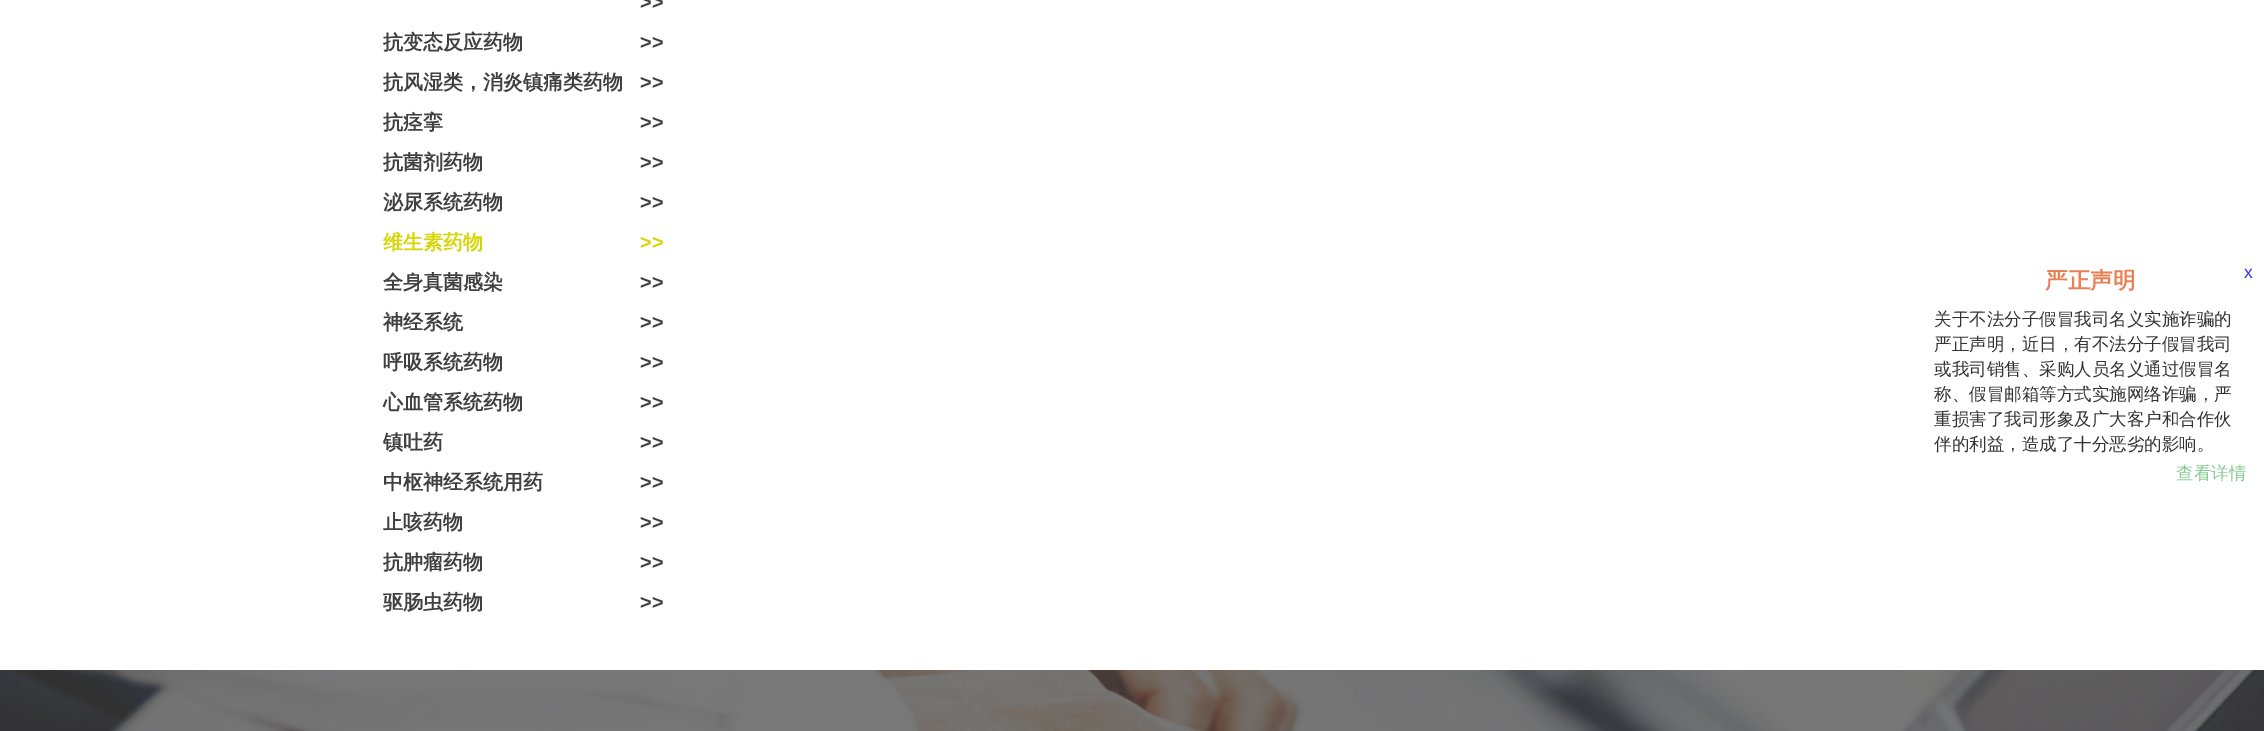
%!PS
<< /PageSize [2264 731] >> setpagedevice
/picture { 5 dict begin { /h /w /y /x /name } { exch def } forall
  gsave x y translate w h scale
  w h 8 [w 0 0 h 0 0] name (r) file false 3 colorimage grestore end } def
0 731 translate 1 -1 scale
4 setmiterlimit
1 setgray
0 0 2264 731 rectfill
/LiberationSans-Bold [20 0 0 -20 0 0] selectfont
0.251 setgray
640 9 moveto (>>) show
/WenQuanYiZenHei-Bold [20 0 0 -20 0 0] selectfont
383 49 moveto (抗变态反应药物) show
/LiberationSans-Bold [20 0 0 -20 0 0] selectfont
640 49 moveto (>>) show
/WenQuanYiZenHei-Bold [20 0 0 -20 0 0] selectfont
383 89 moveto (抗风湿类，消炎镇痛类药物) show
/LiberationSans-Bold [20 0 0 -20 0 0] selectfont
640 89 moveto (>>) show
/WenQuanYiZenHei-Bold [20 0 0 -20 0 0] selectfont
383 129 moveto (抗痉挛) show
/LiberationSans-Bold [20 0 0 -20 0 0] selectfont
640 129 moveto (>>) show
/WenQuanYiZenHei-Bold [20 0 0 -20 0 0] selectfont
383 169 moveto (抗菌剂药物) show
/LiberationSans-Bold [20 0 0 -20 0 0] selectfont
640 169 moveto (>>) show
/WenQuanYiZenHei-Bold [20 0 0 -20 0 0] selectfont
383 209 moveto (泌尿系统药物) show
/LiberationSans-Bold [20 0 0 -20 0 0] selectfont
640 209 moveto (>>) show
/WenQuanYiZenHei-Bold [20 0 0 -20 0 0] selectfont
0.843 0.835 0 setrgbcolor
383 249 moveto (维生素药物) show
/LiberationSans-Bold [20 0 0 -20 0 0] selectfont
640 249 moveto (>>) show
/WenQuanYiZenHei-Bold [20 0 0 -20 0 0] selectfont
0.251 setgray
383 289 moveto (全身真菌感染) show
/LiberationSans-Bold [20 0 0 -20 0 0] selectfont
640 289 moveto (>>) show
/WenQuanYiZenHei-Bold [20 0 0 -20 0 0] selectfont
383 329 moveto (神经系统) show
/LiberationSans-Bold [20 0 0 -20 0 0] selectfont
640 329 moveto (>>) show
/WenQuanYiZenHei-Bold [20 0 0 -20 0 0] selectfont
383 369 moveto (呼吸系统药物) show
/LiberationSans-Bold [20 0 0 -20 0 0] selectfont
640 369 moveto (>>) show
/WenQuanYiZenHei-Bold [20 0 0 -20 0 0] selectfont
383 409 moveto (心血管系统药物) show
/LiberationSans-Bold [20 0 0 -20 0 0] selectfont
640 409 moveto (>>) show
/WenQuanYiZenHei-Bold [20 0 0 -20 0 0] selectfont
383 449 moveto (镇吐药) show
/LiberationSans-Bold [20 0 0 -20 0 0] selectfont
640 449 moveto (>>) show
/WenQuanYiZenHei-Bold [20 0 0 -20 0 0] selectfont
383 489 moveto (中枢神经系统用药) show
/LiberationSans-Bold [20 0 0 -20 0 0] selectfont
640 489 moveto (>>) show
/WenQuanYiZenHei-Bold [20 0 0 -20 0 0] selectfont
383 529 moveto (止咳药物) show
/LiberationSans-Bold [20 0 0 -20 0 0] selectfont
640 529 moveto (>>) show
/WenQuanYiZenHei-Bold [20 0 0 -20 0 0] selectfont
383 569 moveto (抗肿瘤药物) show
/LiberationSans-Bold [20 0 0 -20 0 0] selectfont
640 569 moveto (>>) show
/WenQuanYiZenHei-Bold [20 0 0 -20 0 0] selectfont
383 609 moveto (驱肠虫药物) show
/LiberationSans-Bold [20 0 0 -20 0 0] selectfont
640 609 moveto (>>) show
/WenQuanYiZenHei-Bold [22.5 0 0 -22.5 0 0] selectfont
0.914 0.502 0.333 setrgbcolor
2045 288 moveto (严正声明) show
/LiberationSans-Regular [17.5 0 0 -17.5 0 0] selectfont
0.2 0.2 0.945 setrgbcolor
2244 278 moveto (x) show
/WenQuanYiZenHei-Medium [17.5 0 0 -17.5 0 0] selectfont
0.2 setgray
1934 325 moveto (关于不法分子假冒我司名义实施诈骗的) show
1934 350 moveto (严正声明，近日，有不法分子假冒我司) show
1934 375 moveto (或我司销售、采购人员名义通过假冒名) show
1934 400 moveto (称、假冒邮箱等方式实施网络诈骗，严) show
1934 425 moveto (重损害了我司形象及广大客户和合作伙) show
1934 450 moveto (伴的利益，造成了十分恶劣的影响。) show
0.533 0.792 0.576 setrgbcolor
2176 479 moveto (查看详情) show
(img1.rgb) 0 670 2264 61 picture
showpage
